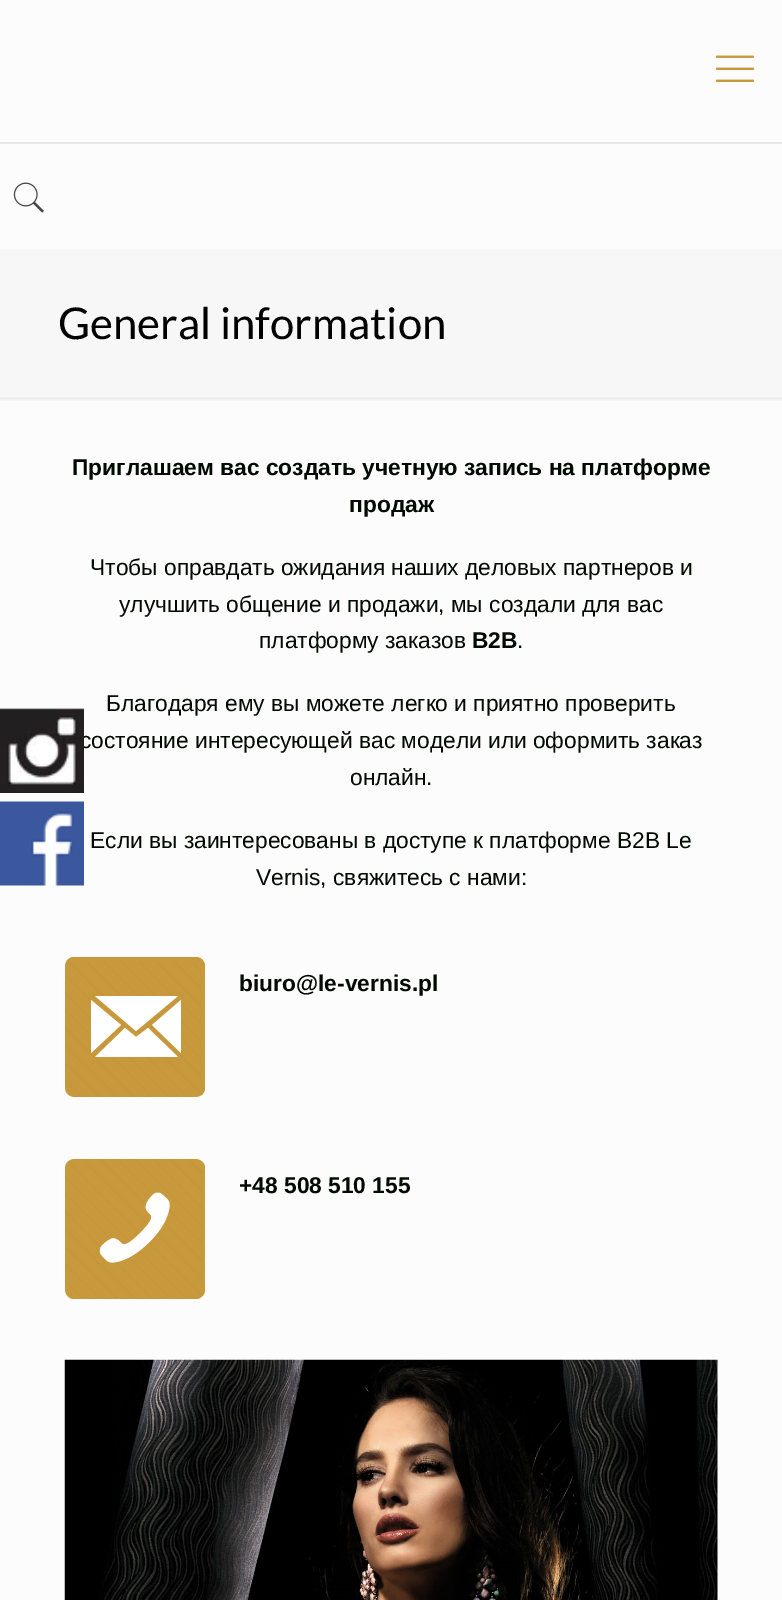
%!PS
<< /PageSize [782 1600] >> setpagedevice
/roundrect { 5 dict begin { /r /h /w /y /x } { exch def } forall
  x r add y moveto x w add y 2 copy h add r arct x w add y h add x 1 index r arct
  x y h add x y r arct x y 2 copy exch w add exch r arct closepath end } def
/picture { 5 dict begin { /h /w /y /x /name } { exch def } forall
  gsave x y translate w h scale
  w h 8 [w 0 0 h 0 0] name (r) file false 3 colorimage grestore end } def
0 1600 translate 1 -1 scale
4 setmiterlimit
0.988 setgray
0 0 782 1600 rectfill
/LiberationSans-Regular [22.75 0 0 -22.75 0 0] selectfont
0 0.039 0.004 setrgbcolor
80 748 moveto (состояние интересующей вас модели или оформить заказ) show
(img1.rgb) 0 708 84 85 picture
(img2.rgb) 715 55 40 27 picture
0.91 setgray
0 142 782 2 rectfill
(img3.rgb) 13 182 31 31 picture
0.969 setgray
0 249 782 148 rectfill
/Lato-Regular [43.75 0 0 -43.75 0 0] selectfont
0 setgray
58 339 moveto (General information) show
(img4.rgb) 0 397 782 4 picture
/LiberationSans-Bold [22.75 0 0 -22.75 0 0] selectfont
0 0.039 0.004 setrgbcolor
72 475 moveto (Приглашаем вас создать учетную запись на платформе) show
349 512 moveto (продаж) show
/LiberationSans-Regular [22.75 0 0 -22.75 0 0] selectfont
90 575 moveto (Чтобы оправдать ожидания наших деловых партнеров и) show
119 612 moveto (улучшить общение и продажи, мы создали для вас) show
259 648 moveto (платформу заказов) show
/LiberationSans-Bold [22.75 0 0 -22.75 0 0] selectfont
472 648 moveto (B2B) show
/LiberationSans-Regular [22.75 0 0 -22.75 0 0] selectfont
517 648 moveto (.) show
106 711 moveto (Благодаря ему вы можете легко и приятно проверить) show
350 785 moveto (онлайн.) show
90 848 moveto (Если вы заинтересованы в доступе к платформе B2B Le) show
256 885 moveto (Vernis, свяжитесь с нами:) show
0.784 0.6 0.235 setrgbcolor
65 957 140 140 9 roundrect fill
(img5.rgb) 65 961 136 136 picture
1 setgray
newpath 91 1052 moveto 91 1000 lineto 121 1025 lineto 91 1053 lineto closepath 95 996 moveto 178 996 lineto 136 1031 lineto closepath 95 1057 moveto 125 1028 lineto 136 1037 lineto 148 1028 lineto 178 1057 lineto closepath 152 1025 moveto 181 1000 lineto 181 1053 lineto closepath fill
/LiberationSans-Bold [22.75 0 0 -22.75 0 0] selectfont
0 0.039 0.004 setrgbcolor
239 991 moveto (biuro@le-vernis.pl) show
0.784 0.6 0.235 setrgbcolor
65 1159 140 140 9 roundrect fill
(img6.rgb) 65 1159 138 139 picture
(img7.rgb) 99 1192 71 71 picture
0 0.039 0.004 setrgbcolor
239 1193 moveto (+48 508 510 155) show
(img8.rgb) 64 1359 654 241 picture
(img9.rgb) 0 801 84 85 picture
showpage
